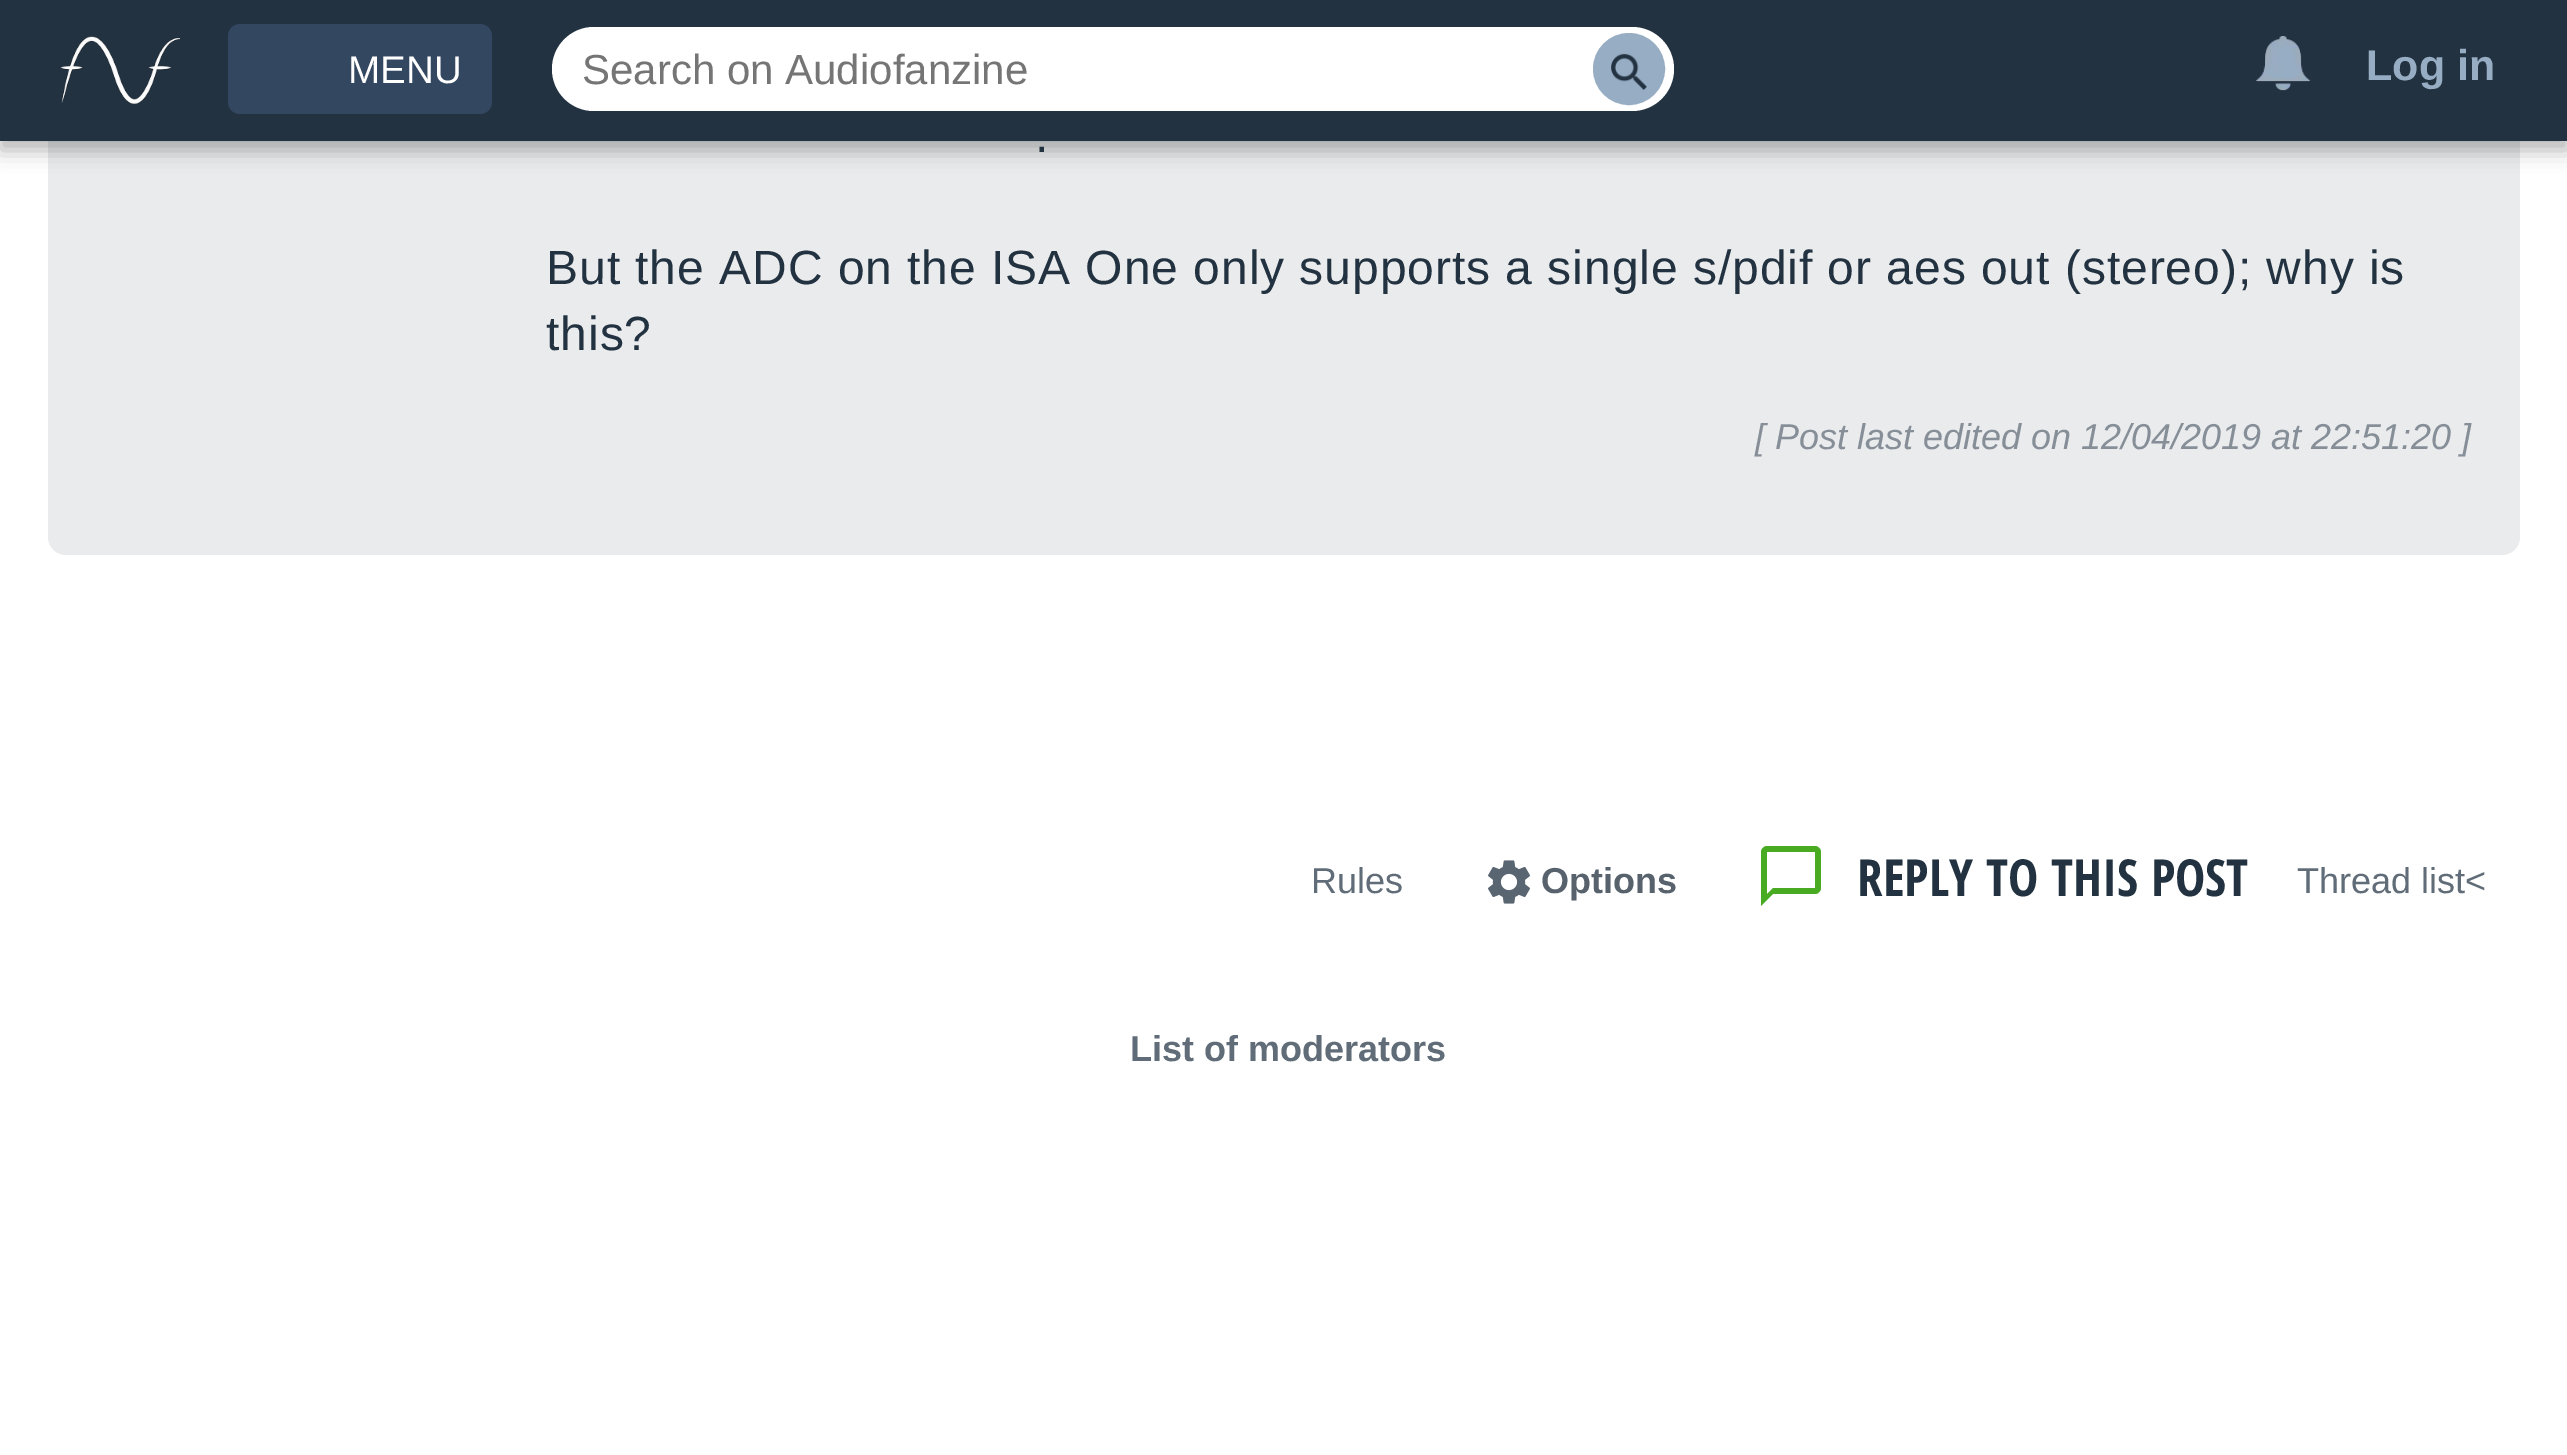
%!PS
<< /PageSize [2567 1455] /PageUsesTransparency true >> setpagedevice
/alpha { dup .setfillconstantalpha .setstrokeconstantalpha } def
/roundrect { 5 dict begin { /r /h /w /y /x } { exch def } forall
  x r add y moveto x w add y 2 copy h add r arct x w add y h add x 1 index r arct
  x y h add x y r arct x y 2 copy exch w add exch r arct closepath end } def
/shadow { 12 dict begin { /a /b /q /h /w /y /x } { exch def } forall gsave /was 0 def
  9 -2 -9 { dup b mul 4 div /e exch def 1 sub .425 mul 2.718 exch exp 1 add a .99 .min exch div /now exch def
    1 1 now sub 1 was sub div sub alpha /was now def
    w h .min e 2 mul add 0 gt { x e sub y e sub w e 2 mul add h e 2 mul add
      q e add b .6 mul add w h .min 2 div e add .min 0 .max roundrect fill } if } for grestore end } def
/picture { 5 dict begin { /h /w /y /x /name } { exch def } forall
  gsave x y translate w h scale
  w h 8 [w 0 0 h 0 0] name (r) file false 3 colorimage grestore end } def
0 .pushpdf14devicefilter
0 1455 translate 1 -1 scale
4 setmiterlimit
1 setgray
0 0 2567 1455 rectfill
0.918 0.922 0.929 setrgbcolor
48 -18 2472 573 18 roundrect fill
0 setgray
0 9 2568 141 0 10.5 0.3 shadow
0.133 0.196 0.251 setrgbcolor
0 0 2567 141 rectfill
(img1.rgb) 2256 36 55 55 picture
/LiberationSans-Bold [43 0 0 -43 0 0] selectfont
0.592 0.678 0.769 setrgbcolor
2366 80 moveto (Log in) show
(img2.rgb) 60 36 120 68 picture
0.2 0.278 0.376 setrgbcolor
228 24 264 90 12 roundrect fill
/LiberationSans-Regular [38.5 0 0 -38.5 0 0] selectfont
1 setgray
348 83 moveto (MENU) show
552 27 1122 84 42 roundrect fill
/LiberationSans-Regular [42 0 0 -42 0 0] selectfont
0.459 setgray
582 84 moveto (Search on Audiofanzine) show
0.592 0.678 0.769 setrgbcolor
newpath 1629 69 34.5 0 360 arc closepath gsave fill grestore
3 setlinewidth
stroke
(img3.rgb) 1611 53 36 37 picture
/LiberationSans-Regular [48 0 0 -48 0 0] selectfont
0.133 0.196 0.251 setrgbcolor
1035 152 moveto 0.95 0 (.) ashow
546 284 moveto 0.95 0 (But the ADC on the ISA One only supports a single s/pdif or aes out \(stereo\); why is) ashow
546 350 moveto 0.95 0 (this?) ashow
/LiberationSans-Italic [36 0 0 -36 0 0] selectfont
0.525 0.557 0.592 setrgbcolor
1755 449 moveto ([ Post last edited on 12/04/2019 at 22:51:20 ]) show
/LiberationSans-Regular [36 0 0 -36 0 0] selectfont
0.376 0.424 0.467 setrgbcolor
1311 893 moveto (Rules) show
(img4.rgb) 1488 860 42 44 picture
/LiberationSans-Bold [36 0 0 -36 0 0] selectfont
0.341 0.384 0.427 setrgbcolor
1541 893 moveto (Options) show
0.282 0.671 0.133 setrgbcolor
newpath 1815 846 moveto 1767 846 lineto 1764 846 1761 849 1761 852 curveto 1761 906 lineto 1773 894 lineto 1815 894 lineto 1818 894 1821 891 1821 888 curveto 1821 852 lineto 1821 849 1818 846 1815 846 curveto closepath 1815 888 moveto 1773 888 lineto 1767 894 lineto 1767 852 lineto 1815 852 lineto closepath fill
/OpenSansCondensed-Bold [51 0 0 -51 0 0] selectfont
0.133 0.196 0.251 setrgbcolor
1857 896 moveto (REPLY TO THIS POST) show
/LiberationSans-Regular [36 0 0 -36 0 0] selectfont
0.376 0.424 0.467 setrgbcolor
2297 893 moveto (Thread list<) show
/LiberationSans-Bold [36 0 0 -36 0 0] selectfont
1130 1061 moveto (List of moderators) show
.poppdf14devicefilter showpage
